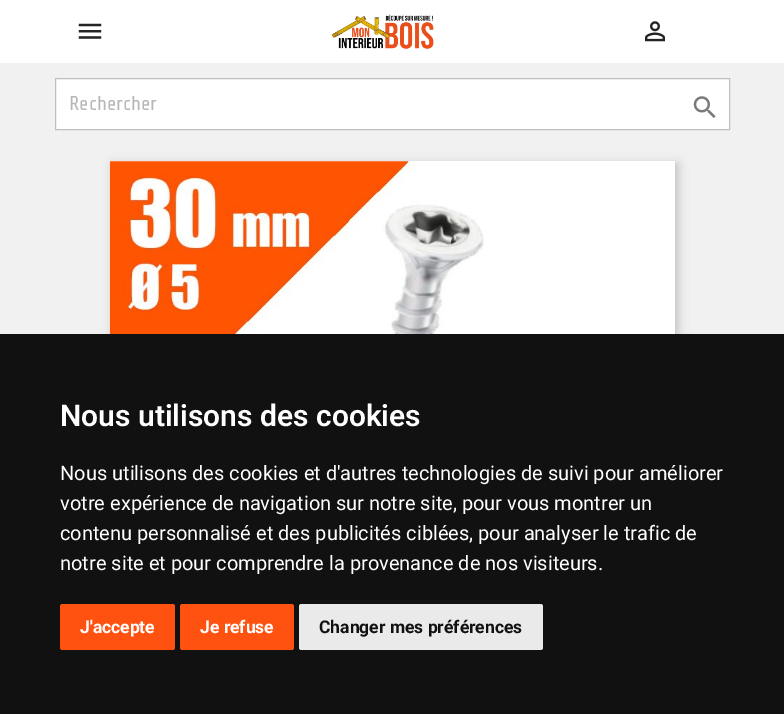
%!PS
<< /PageSize [784 714] /PageUsesTransparency true >> setpagedevice
/alpha { dup .setfillconstantalpha .setstrokeconstantalpha } def
/roundrect { 5 dict begin { /r /h /w /y /x } { exch def } forall
  x r add y moveto x w add y 2 copy h add r arct x w add y h add x 1 index r arct
  x y h add x y r arct x y 2 copy exch w add exch r arct closepath end } def
/shadow { 12 dict begin { /a /b /q /h /w /y /x } { exch def } forall gsave /was 0 def
  9 -2 -9 { dup b mul 4 div /e exch def 1 sub .425 mul 2.718 exch exp 1 add a .99 .min exch div /now exch def
    1 1 now sub 1 was sub div sub alpha /was now def
    w h .min e 2 mul add 0 gt { x e sub y e sub w e 2 mul add h e 2 mul add
      q e add b .6 mul add w h .min 2 div e add .min 0 .max roundrect fill } if } for grestore end } def
/picture { 5 dict begin { /h /w /y /x /name } { exch def } forall
  gsave x y translate w h scale
  w h 8 [w 0 0 h 0 0] name (r) file false 3 colorimage grestore end } def
0 .pushpdf14devicefilter
0 714 translate 1 -1 scale
4 setmiterlimit
0.945 setgray
0 0 784 714 rectfill
1 setgray
0 0 784 63 rectfill
(img1.rgb) 78 23 24 16 picture
(img2.rgb) 331 14 103 35 picture
(img3.rgb) 645 21 20 21 picture
newpath 55.5 78.5 moveto 729.5 78.5 lineto 729.5 129.5 lineto 55.5 129.5 lineto closepath gsave fill grestore
0.749 setgray
stroke
/ShareTech-Regular [20 0 0 -20 0 0] selectfont
0.718 setgray
69 110 moveto (Rechercher) show
(img4.rgb) 693 96 23 22 picture
0 setgray
113 164 565 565 0 5 0.2 shadow
1 setgray
110 161 565 173 rectfill
(img5.rgb) 110 161 531 173 picture
0.067 setgray
0 334 784 380 rectfill
/Roboto-SemiBold [30 0 0 -30 0 0] selectfont
1 setgray
60 426 moveto (Nous utilisons des cookies) show
/Roboto-Regular [20 0 0 -20 0 0] selectfont
60 480 moveto (Nous utilisons des cookies et d'autres technologies de suivi pour améliorer) show
60 510 moveto (votre expérience de navigation sur notre site, pour vous montrer un) show
60 540 moveto (contenu personnalisé et des publicités ciblées, pour analyser le trafic de) show
60 570 moveto (notre site et pour comprendre la provenance de nos visiteurs.) show
1 0.322 0.067 setrgbcolor
60 604 115 46 2.5 roundrect fill
/Roboto-Bold [17.5 0 0 -17.5 0 0] selectfont
1 setgray
80 633 moveto (J'accepte) show
1 0.322 0.067 setrgbcolor
180 604 114 46 2.5 roundrect fill
1 setgray
200 633 moveto (Je refuse) show
0.918 setgray
299 604 244 46 2.5 roundrect fill
0.067 setgray
319 633 moveto (Changer mes préférences) show
.poppdf14devicefilter showpage
